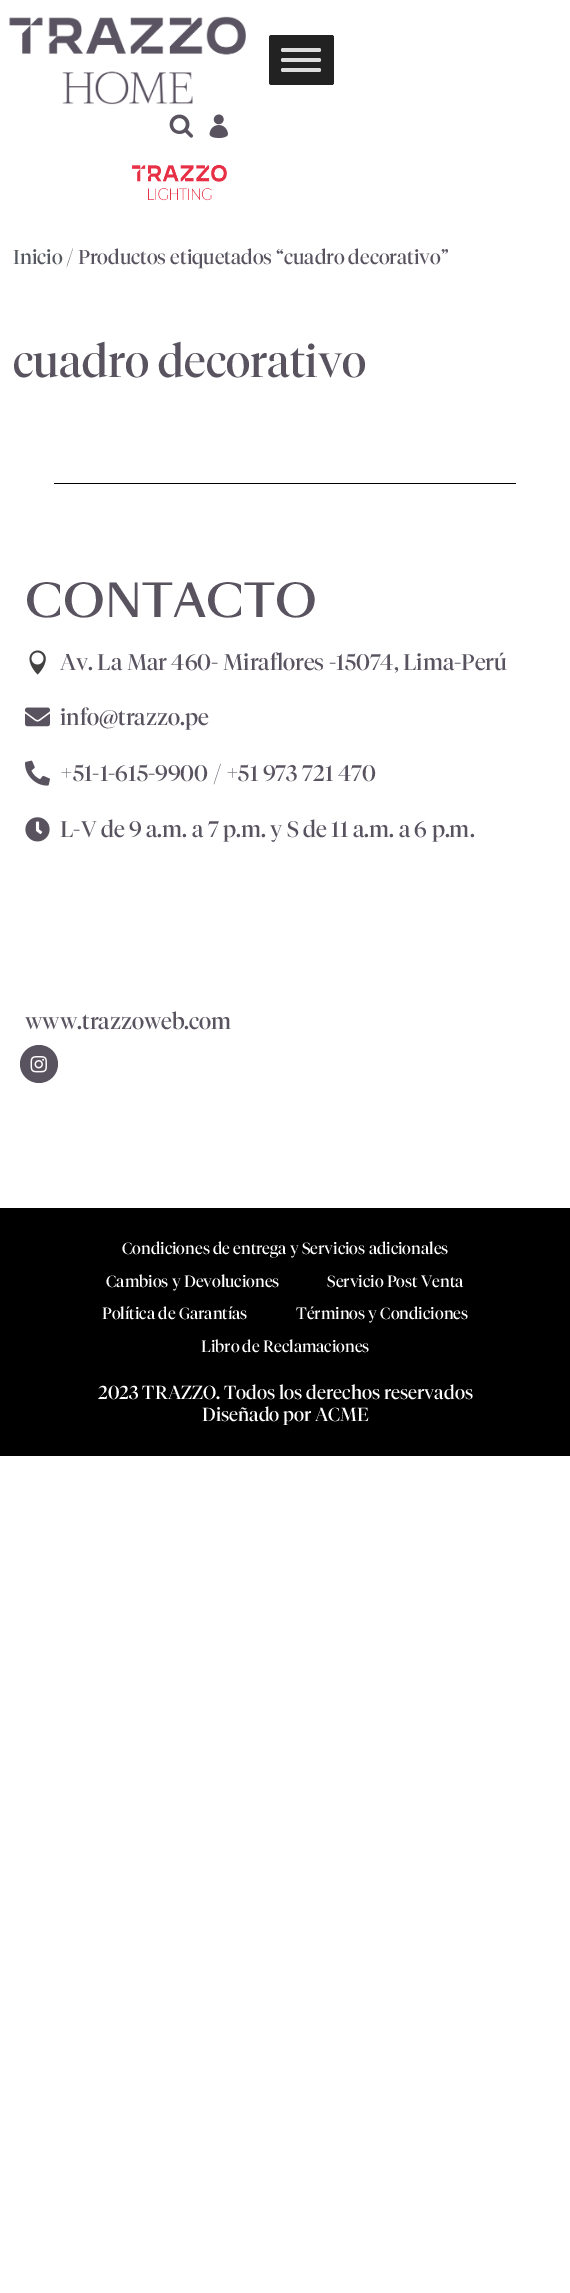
%!PS
<< /PageSize [570 2293] >> setpagedevice
/roundrect { 5 dict begin { /r /h /w /y /x } { exch def } forall
  x r add y moveto x w add y 2 copy h add r arct x w add y h add x 1 index r arct
  x y h add x y r arct x y 2 copy exch w add exch r arct closepath end } def
/picture { 5 dict begin { /h /w /y /x /name } { exch def } forall
  gsave x y translate w h scale
  w h 8 [w 0 0 h 0 0] name (r) file false 3 colorimage grestore end } def
0 2293 translate 1 -1 scale
4 setmiterlimit
1 setgray
0 0 570 2293 rectfill
(img1.rgb) 9 16 237 89 picture
0.133 setgray
269 35 65 50 2.5 roundrect fill
0.867 setgray
281 48 40 4 2 roundrect fill
281 58 40 4 2 roundrect fill
281 68 40 4 2 roundrect fill
(img2.rgb) 169 114 25 24 picture
(img3.rgb) 209 114 19 25 picture
(img4.rgb) 132 164 95 37 picture
/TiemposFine-Regular [20 0 0 -20 0 0] selectfont
0.329 0.349 0.373 setrgbcolor
13 264 moveto (Inicio) show
0.349 0.325 0.376 setrgbcolor
66 264 moveto (/ Productos etiquetados “cuadro decorativo”) show
/TiemposFine-Regular [45 0 0 -45 0 0] selectfont
13 377 moveto (cuadro decorativo) show
0 setgray
54 483 462 1 rectfill
/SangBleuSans-Medium [43.75 0 0 -43.75 0 0] selectfont
0.349 0.325 0.376 setrgbcolor
25 617 moveto (CONTACTO) show
(img5.rgb) 29 650 17 25 picture
/TiemposFine-Regular [22.5 0 0 -22.5 0 0] selectfont
60 670 moveto (Av. La Mar 460- Miraflores -15074, Lima-Perú) show
(img6.rgb) 25 707 25 20 picture
60 725 moveto (info@trazzo.pe) show
(img7.rgb) 25 760 25 26 picture
60 781 moveto (+51-1-615-9900 / +51 973 721 470) show
(img8.rgb) 25 817 25 25 picture
60 837 moveto (L-V de 9 a.m. a 7 p.m. y S de 11 a.m. a 6 p.m.) show
25 1029 moveto (www.trazzoweb.com) show
newpath 39 1064 19 0 360 arc closepath fill
(img9.rgb) 30 1056 17 17 picture
0 setgray
0 1208 570 248 rectfill
/TiemposFine-Regular [16.25 0 0 -16.25 0 0] selectfont
1 setgray
122 1254 moveto (Condiciones de entrega y Servicios adicionales) show
106 1287 moveto (Cambios y Devoluciones) show
327 1287 moveto (Servicio Post Venta) show
102 1319 moveto (Política de Garantías) show
296 1319 moveto (Términos y Condiciones) show
201 1352 moveto (Libro de Reclamaciones) show
/TiemposFine-Regular [18.75 0 0 -18.75 0 0] selectfont
98 1399 moveto (2023 TRAZZO. Todos los derechos reservados) show
202 1421 moveto (Diseñado por ACME) show
showpage
